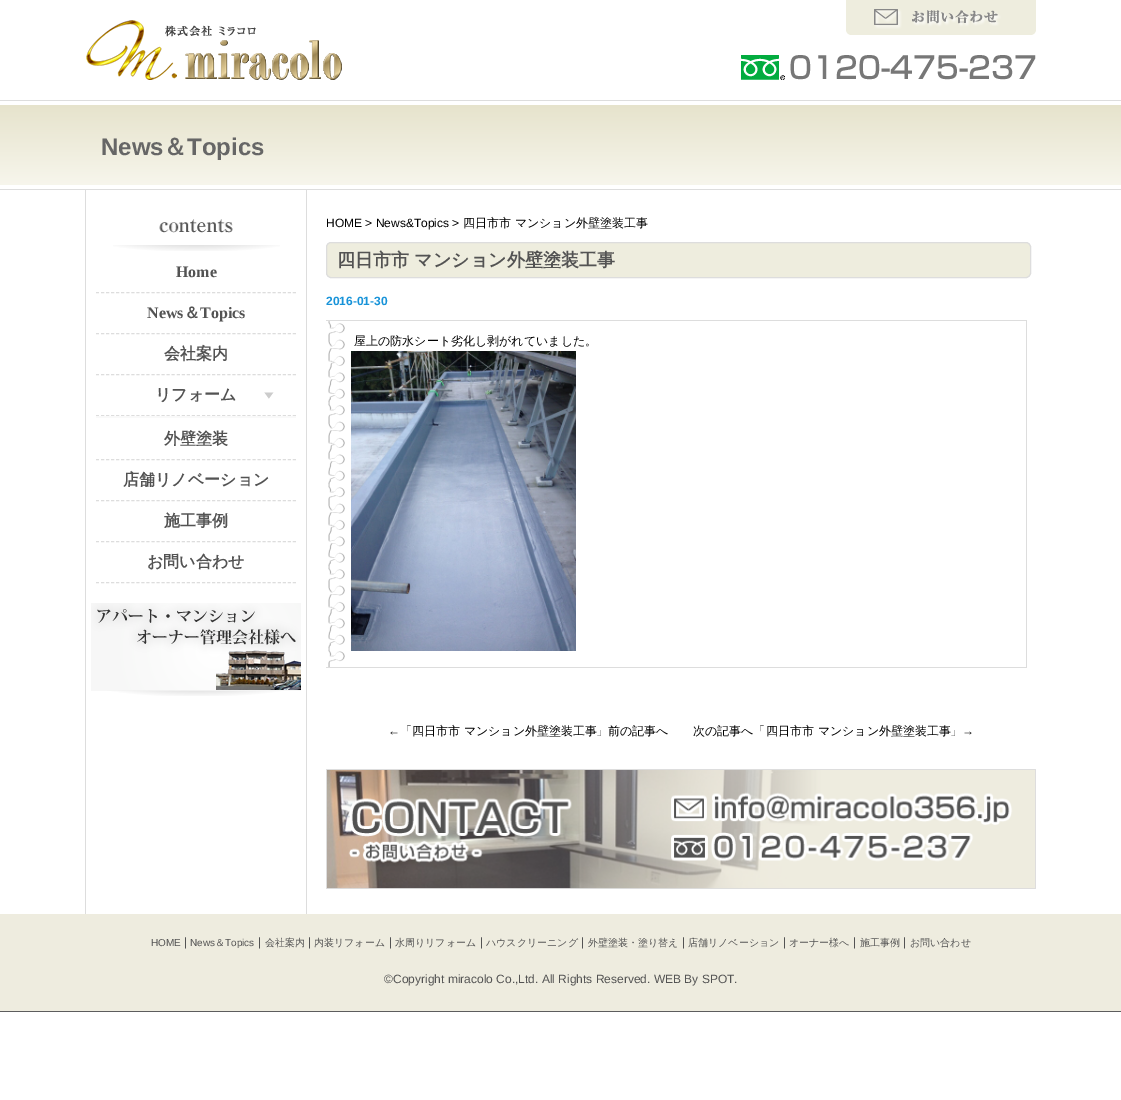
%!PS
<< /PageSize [1121 1100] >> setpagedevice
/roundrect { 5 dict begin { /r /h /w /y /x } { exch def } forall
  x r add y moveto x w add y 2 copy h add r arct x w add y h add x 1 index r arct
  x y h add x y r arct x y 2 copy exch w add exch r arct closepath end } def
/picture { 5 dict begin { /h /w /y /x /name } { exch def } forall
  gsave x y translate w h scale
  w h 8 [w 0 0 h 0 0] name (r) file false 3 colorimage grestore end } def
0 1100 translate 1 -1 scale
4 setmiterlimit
1 setgray
0 0 1121 1100 rectfill
(img1.rgb) 86 20 256 60 picture
(img2.rgb) 846 0 190 35 picture
(img3.rgb) 741 55 295 25 picture
(img4.rgb) 0 100 1121 90 picture
/LiberationSans-Bold [24 0 0 -24 0 0] selectfont
0.4 setgray
101 155 moveto (News) show
/WenQuanYiZenHei-Bold [24 0 0 -24 0 0] selectfont
163 155 moveto (＆) show
/LiberationSans-Bold [24 0 0 -24 0 0] selectfont
187 155 moveto (Topics) show
0.867 setgray
85 190 1 724 rectfill
(img5.rgb) 113 219 167 32 picture
[3 2.05] 0 setdash
newpath 96 292.5 moveto 296 292.5 lineto stroke
/LiberationSerif-Bold [16 0 0 -16 0 0] selectfont
0.325 setgray
176 277 moveto (Home) show
0.867 setgray
newpath 96 333.5 moveto 296 333.5 lineto stroke
0.325 setgray
147 318 moveto (News) show
/WenQuanYiZenHei-Bold [16 0 0 -16 0 0] selectfont
184 318 moveto (＆) show
/LiberationSerif-Bold [16 0 0 -16 0 0] selectfont
200 318 moveto (Topics) show
0.867 setgray
newpath 96 374.5 moveto 296 374.5 lineto stroke
/WenQuanYiZenHei-Bold [16 0 0 -16 0 0] selectfont
0.325 setgray
164 359 moveto (会社案内) show
(img6.rgb) 264 392 10 7 picture
0.867 setgray
newpath 96 415.5 moveto 296 415.5 lineto stroke
0.325 setgray
155 400 moveto (リフォーム) show
0.976 setgray
96 416 200 2 rectfill
0.867 setgray
newpath 96 459.5 moveto 296 459.5 lineto stroke
0.325 setgray
164 444 moveto (外壁塗装) show
0.867 setgray
newpath 96 500.5 moveto 296 500.5 lineto stroke
0.325 setgray
123 485 moveto (店舗リノベーション) show
0.867 setgray
newpath 96 541.5 moveto 296 541.5 lineto stroke
0.325 setgray
164 526 moveto (施工事例) show
0.867 setgray
newpath 96 582.5 moveto 296 582.5 lineto stroke
0.325 setgray
147 567 moveto (お問い合わせ) show
(img7.rgb) 91 603 210 93 picture
0.867 setgray
306 190 1 724 rectfill
/LiberationSans-Regular [12 0 0 -12 0 0] selectfont
0 setgray
326 227 moveto (HOME > News&Topics >) show
/WenQuanYiZenHei-Medium [12 0 0 -12 0 0] selectfont
463 227 moveto (四日市市 マンション外壁塗装工事) show
0.933 0.929 0.871 setrgbcolor
326.5 242.5 704 35 4.5 roundrect gsave fill grestore
0.867 setgray
[] 0 setdash
stroke
/WenQuanYiZenHei-Bold [18 0 0 -18 0 0] selectfont
0.325 setgray
337 266 moveto (四日市市 マンション外壁塗装工事) show
/LiberationSans-Bold [12 0 0 -12 0 0] selectfont
0.09 0.576 0.851 setrgbcolor
326 305 moveto (2016-01-30) show
(img8.rgb) 328 321 17 346 picture
0.867 setgray
326 320 701 1 rectfill
1026 320 1 348 rectfill
326 667 701 1 rectfill
/WenQuanYiZenHei-Medium [12 0 0 -12 0 0] selectfont
0 setgray
354 345 moveto (屋上の防水シート劣化し剥がれていました。) show
(img9.rgb) 351 351 225 300 picture
/LiberationSans-Regular [12 0 0 -12 0 0] selectfont
388 735 moveto (←) show
/WenQuanYiZenHei-Medium [12 0 0 -12 0 0] selectfont
400 735 moveto (「) show
412 735 moveto (四日市市 マンション外壁塗装工事) show
596 735 moveto (」前の記事へ　　次の記事へ「) show
766 735 moveto (四日市市 マンション外壁塗装工事) show
950 735 moveto (」) show
/LiberationSans-Regular [12 0 0 -12 0 0] selectfont
962 735 moveto (→) show
(img10.rgb) 326 769 710 120 picture
0.933 0.925 0.875 setrgbcolor
0 914 1121 97 rectfill
0.365 setgray
0 1011 1121 1 rectfill
/LiberationSans-Regular [10 0 0 -10 0 0] selectfont
0.325 setgray
151 946 moveto (HOME) show
/LiberationSans-Regular [12 0 0 -12 0 0] selectfont
184 946 moveto (|) show
/LiberationSans-Regular [10 0 0 -10 0 0] selectfont
190 946 moveto (News) show
/WenQuanYiZenHei-Medium [10 0 0 -10 0 0] selectfont
215 946 moveto (＆) show
/LiberationSans-Regular [10 0 0 -10 0 0] selectfont
225 946 moveto (Topics) show
/LiberationSans-Regular [12 0 0 -12 0 0] selectfont
258 946 moveto (|) show
/WenQuanYiZenHei-Medium [10 0 0 -10 0 0] selectfont
265 946 moveto (会社案内) show
/LiberationSans-Regular [12 0 0 -12 0 0] selectfont
308 946 moveto (|) show
/WenQuanYiZenHei-Medium [10 0 0 -10 0 0] selectfont
314 946 moveto (内装リフォーム) show
/LiberationSans-Regular [12 0 0 -12 0 0] selectfont
389 946 moveto (|) show
/WenQuanYiZenHei-Medium [10 0 0 -10 0 0] selectfont
395 946 moveto (水周りリフォーム) show
/LiberationSans-Regular [12 0 0 -12 0 0] selectfont
480 946 moveto (|) show
/WenQuanYiZenHei-Medium [10 0 0 -10 0 0] selectfont
486 946 moveto (ハウスクリーニング) show
/LiberationSans-Regular [12 0 0 -12 0 0] selectfont
581 946 moveto (|) show
/WenQuanYiZenHei-Medium [10 0 0 -10 0 0] selectfont
588 946 moveto (外壁塗装・塗り替え) show
/LiberationSans-Regular [12 0 0 -12 0 0] selectfont
682 946 moveto (|) show
/WenQuanYiZenHei-Medium [10 0 0 -10 0 0] selectfont
688 946 moveto (店舗リノベーション) show
/LiberationSans-Regular [12 0 0 -12 0 0] selectfont
783 946 moveto (|) show
/WenQuanYiZenHei-Medium [10 0 0 -10 0 0] selectfont
789 946 moveto (オーナー様へ) show
/LiberationSans-Regular [12 0 0 -12 0 0] selectfont
853 946 moveto (|) show
/WenQuanYiZenHei-Medium [10 0 0 -10 0 0] selectfont
860 946 moveto (施工事例) show
/LiberationSans-Regular [12 0 0 -12 0 0] selectfont
903 946 moveto (|) show
/WenQuanYiZenHei-Medium [10 0 0 -10 0 0] selectfont
910 946 moveto (お問い合わせ) show
/LiberationSans-Regular [12 0 0 -12 0 0] selectfont
384 983 moveto (©Copyright miracolo Co.,Ltd. All Rights Reserved. WEB By SPOT.) show
showpage
